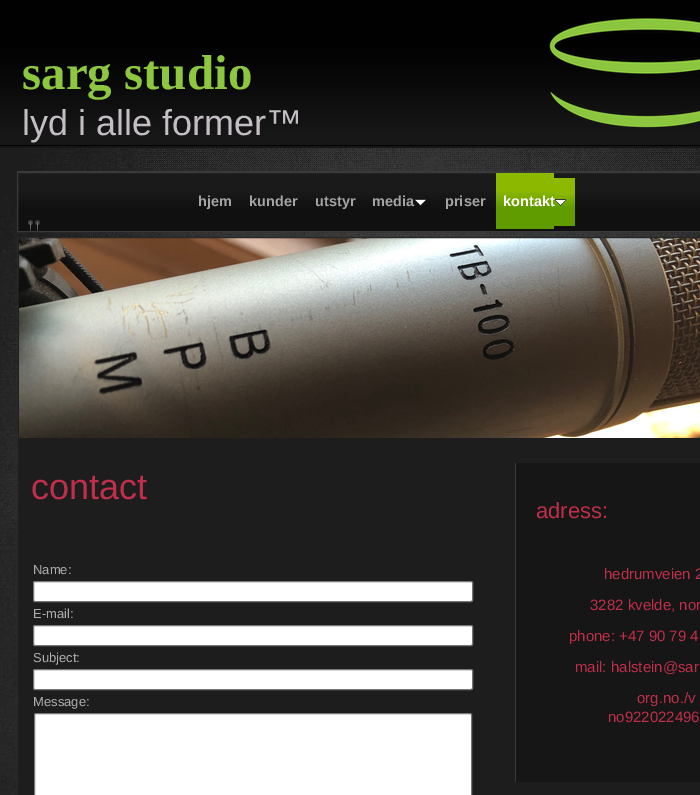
%!PS
<< /PageSize [700 795] >> setpagedevice
/roundrect { 5 dict begin { /r /h /w /y /x } { exch def } forall
  x r add y moveto x w add y 2 copy h add r arct x w add y h add x 1 index r arct
  x y h add x y r arct x y 2 copy exch w add exch r arct closepath end } def
/picture { 5 dict begin { /h /w /y /x /name } { exch def } forall
  gsave x y translate w h scale
  w h 8 [w 0 0 h 0 0] name (r) file false 3 colorimage grestore end } def
0 795 translate 1 -1 scale
4 setmiterlimit
1 setgray
0 0 700 795 rectfill
(img1.rgb) 0 0 700 795 picture
/LiberationSerif-Bold [49 0 0 -49 0 0] selectfont
0.553 0.78 0.251 setrgbcolor
22 89 moveto (sarg studio) show
(img2.rgb) 549 17 151 111 picture
/LiberationSans-Regular [36 0 0 -36 0 0] selectfont
0.765 0.745 0.765 setrgbcolor
22 135 moveto (lyd i alle former™) show
0.227 setgray
17 171 683 1 rectfill
gsave newpath 18 173 moveto 700 173 lineto 700 231 lineto 18 231 lineto closepath clip newpath
<< /ShadingType 2 /ColorSpace /DeviceRGB /Coords [18 231 18 173] /Extend [true true] /Function << /FunctionType 3 /Domain [0 1] /Functions [<< /FunctionType 2 /Domain [0 1] /C0 [0.063 0.063 0.063] /C1 [0.063 0.063 0.063] /N 1 >> << /FunctionType 2 /Domain [0 1] /C0 [0.063 0.063 0.063] /C1 [0.102 0.102 0.102] /N 1 >> << /FunctionType 2 /Domain [0 1] /C0 [0.102 0.102 0.102] /C1 [0.102 0.102 0.102] /N 1 >>] /Bounds [0.38 0.69] /Encode [0 1 0 1 0 1] >> >> shfill grestore
17.5 172.5 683 59 rectstroke
(img3.rgb) 28 220 12 11 picture
/LiberationSans-Bold [14.5 0 0 -14.5 0 0] selectfont
0.643 setgray
198 206 moveto (hjem) show
249 206 moveto (kunder) show
315 206 moveto (utstyr) show
372 206 moveto (media) show
(img4.rgb) 415 199 11 7 picture
445 206 moveto (priser) show
gsave newpath 496 173 moveto 554 173 lineto 554 229 lineto 496 229 lineto closepath clip newpath
<< /ShadingType 2 /ColorSpace /DeviceRGB /Coords [496 229 496 173] /Extend [true true] /Function << /FunctionType 3 /Domain [0 1] /Functions [<< /FunctionType 2 /Domain [0 1] /C0 [0.376 0.612 0] /C1 [0.376 0.612 0] /N 1 >> << /FunctionType 2 /Domain [0 1] /C0 [0.376 0.612 0] /C1 [0.553 0.722 0] /N 1 >> << /FunctionType 2 /Domain [0 1] /C0 [0.553 0.722 0] /C1 [0.553 0.722 0] /N 1 >>] /Bounds [0.38 0.69] /Encode [0 1 0 1 0 1] >> >> shfill grestore
gsave newpath 554 178 moveto 575 178 lineto 575 226 lineto 554 226 lineto closepath clip newpath
<< /ShadingType 2 /ColorSpace /DeviceRGB /Coords [554 226 554 178] /Extend [true true] /Function << /FunctionType 3 /Domain [0 1] /Functions [<< /FunctionType 2 /Domain [0 1] /C0 [0.376 0.612 0] /C1 [0.376 0.612 0] /N 1 >> << /FunctionType 2 /Domain [0 1] /C0 [0.376 0.612 0] /C1 [0.553 0.722 0] /N 1 >> << /FunctionType 2 /Domain [0 1] /C0 [0.553 0.722 0] /C1 [0.553 0.722 0] /N 1 >>] /Bounds [0.38 0.69] /Encode [0 1 0 1 0 1] >> >> shfill grestore
1 setgray
503 206 moveto (kontakt) show
(img5.rgb) 555 199 11 7 picture
0.11 0.114 0.11 setrgbcolor
18 238 682 557 rectfill
(img6.rgb) 19 238 681 200 picture
0.157 setgray
17.5 237.5 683 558 rectstroke
/LiberationSans-Regular [36 0 0 -36 0 0] selectfont
0.741 0.184 0.29 setrgbcolor
31 499 moveto (contact) show
/LiberationSans-Regular [13 0 0 -13 0 0] selectfont
0.682 setgray
33 574 moveto (Name:) show
1 setgray
33.5 581.5 439 20 1.5 roundrect gsave fill grestore
0.463 setgray
stroke
0.682 setgray
33 618 moveto (E-mail:) show
1 setgray
33.5 625.5 439 20 1.5 roundrect gsave fill grestore
0.463 setgray
stroke
0.682 setgray
33 662 moveto (Subject:) show
1 setgray
33.5 669.5 439 20 1.5 roundrect gsave fill grestore
0.463 setgray
stroke
0.682 setgray
33 706 moveto (Message:) show
1 setgray
34.5 713.5 437 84 1.5 roundrect gsave fill grestore
0.463 setgray
stroke
0.086 setgray
516 463 184 319 rectfill
0.227 setgray
515 463 1 319 rectfill
/LiberationSans-Regular [22 0 0 -22 0 0] selectfont
0.741 0.184 0.29 setrgbcolor
536 518 moveto (adress:) show
/LiberationSans-Regular [15 0 0 -15 0 0] selectfont
604 579 moveto (hedrumveien 2) show
590 610 moveto (3282 kvelde, nor) show
569 641 moveto (phone: +47 90 79 4) show
575 672 moveto (mail: halstein@sar) show
637 703 moveto (org.no./v) show
608 722 moveto (no922022496) show
showpage
